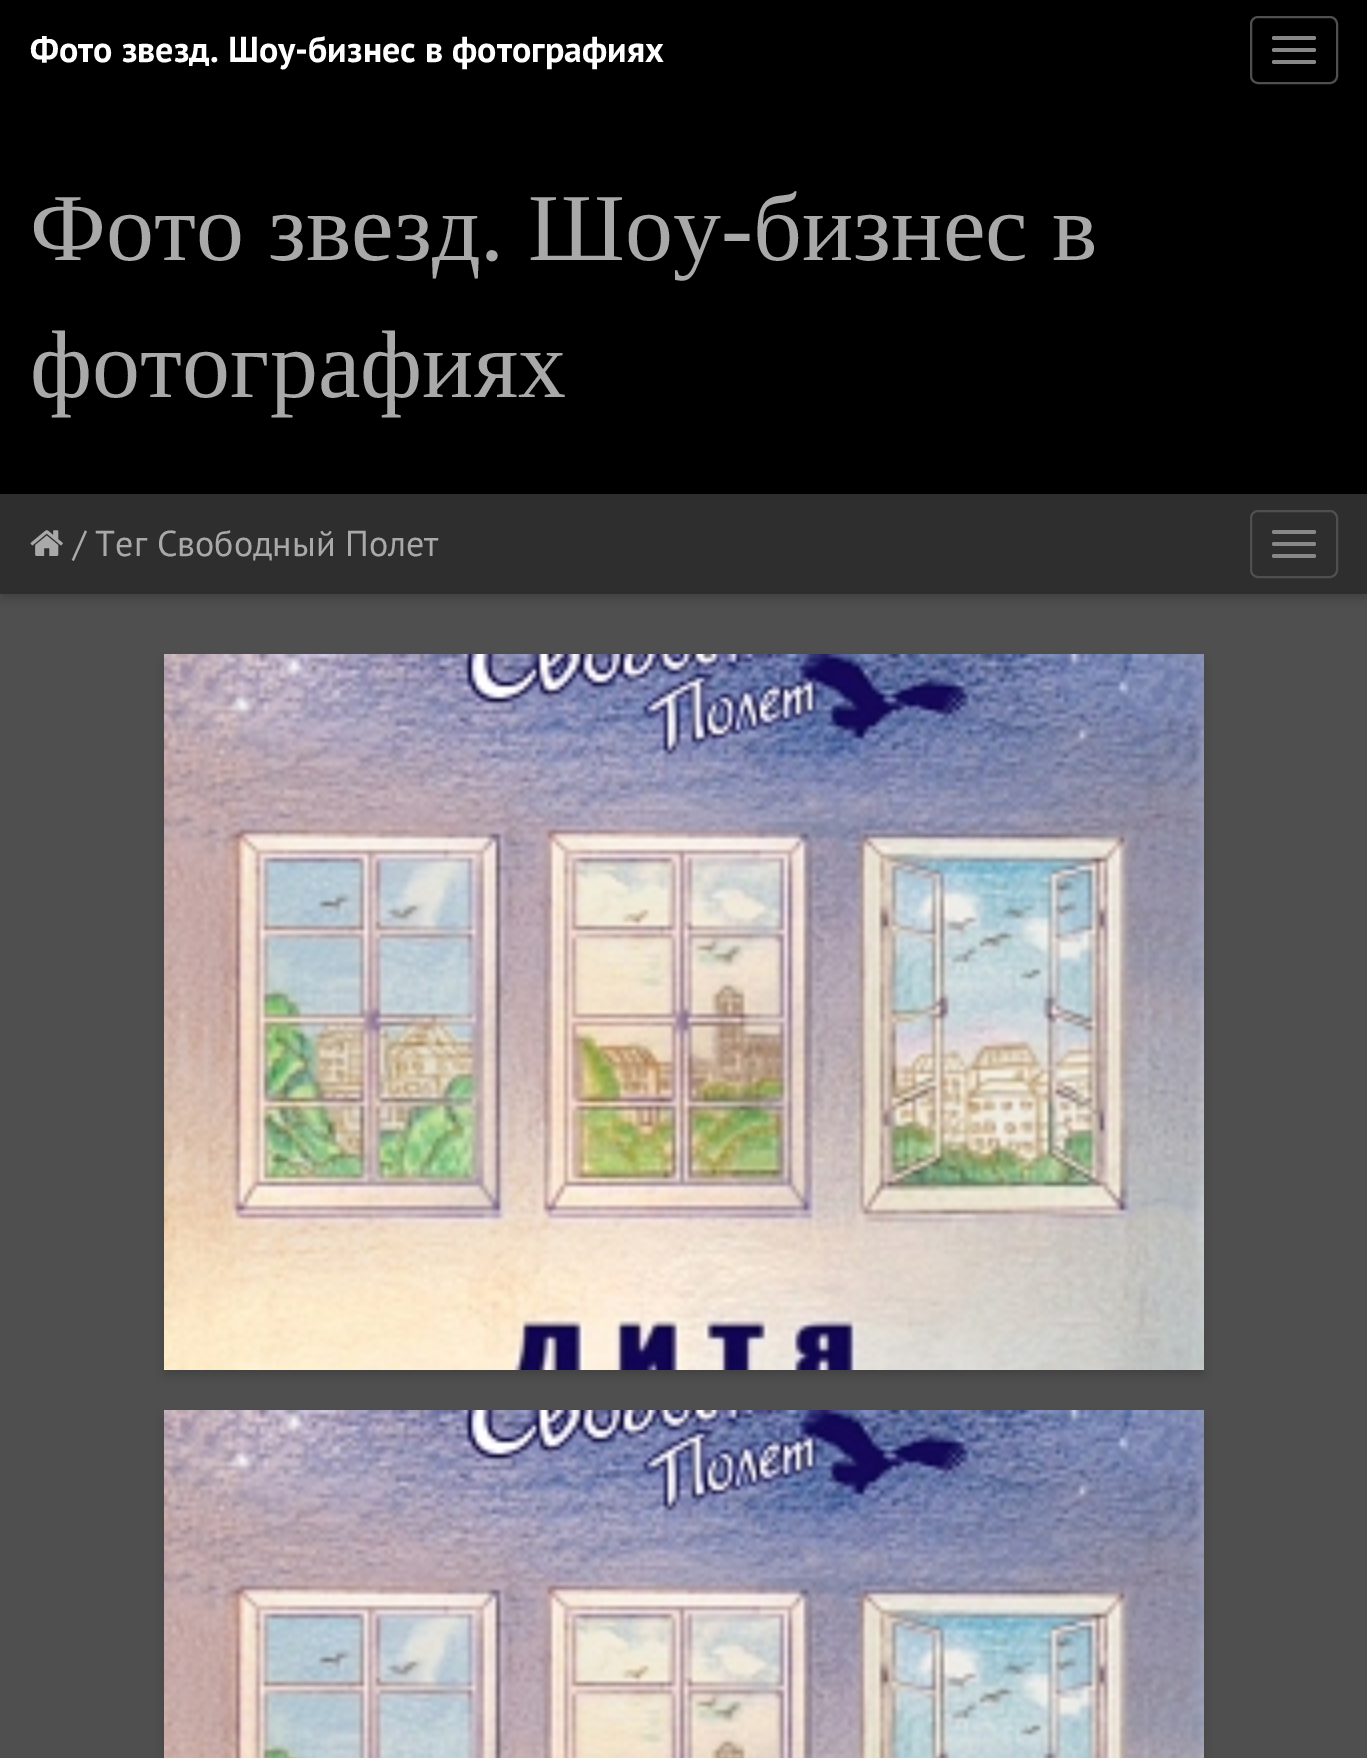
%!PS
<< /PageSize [1367 1758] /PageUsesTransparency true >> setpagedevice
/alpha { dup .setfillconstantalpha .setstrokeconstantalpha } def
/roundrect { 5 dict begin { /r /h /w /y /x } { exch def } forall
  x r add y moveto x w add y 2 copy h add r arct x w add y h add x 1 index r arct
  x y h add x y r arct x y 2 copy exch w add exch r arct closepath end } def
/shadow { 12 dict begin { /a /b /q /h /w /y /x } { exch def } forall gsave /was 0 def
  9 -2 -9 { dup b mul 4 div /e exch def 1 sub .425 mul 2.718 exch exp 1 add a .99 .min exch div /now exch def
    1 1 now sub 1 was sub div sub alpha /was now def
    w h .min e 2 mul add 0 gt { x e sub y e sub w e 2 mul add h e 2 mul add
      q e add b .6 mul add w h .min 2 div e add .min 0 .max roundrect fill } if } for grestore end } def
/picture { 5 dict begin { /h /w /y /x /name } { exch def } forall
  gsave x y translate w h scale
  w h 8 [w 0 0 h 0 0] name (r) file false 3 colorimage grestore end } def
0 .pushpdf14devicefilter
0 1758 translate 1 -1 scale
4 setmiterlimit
0.31 setgray
0 0 1367 1758 rectfill
0 setgray
0 0 1367 494 rectfill
/PTSans-Bold [36 0 0 -36 0 0] selectfont
1 setgray
30 62 moveto (Фото звезд. Шоу-бизнес в фотографиях) show
0.31 setgray
2 setlinewidth
1251 17 86 66 7 roundrect stroke
0.533 setgray
1272 36 44 4 2 roundrect fill
1272 48 44 4 2 roundrect fill
1272 60 44 4 2 roundrect fill
/LiberationSerif-Regular [96 0 0 -96 0 0] selectfont
0.663 setgray
30 260 moveto (Фото звезд. Шоу-бизнес в) show
30 397 moveto (фотографиях) show
0 setgray
2 502 1364 96 0 5 0.2 shadow
0.18 setgray
0 494 1367 100 rectfill
(img1.rgb) 30 530 33 26 picture
/PTSans-Regular [36 0 0 -36 0 0] selectfont
0.663 setgray
73 556 moveto (/ Тег Свободный Полет) show
0.31 setgray
1251 511 86 66 7 roundrect stroke
0.533 setgray
1272 530 44 4 2 roundrect fill
1272 542 44 4 2 roundrect fill
1272 554 44 4 2 roundrect fill
0 setgray
166 662 1036 712 0 5 0.2 shadow
(img2.rgb) 164 654 1040 716 picture
166 1418 1036 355 0 5 0.2 shadow
(img3.rgb) 164 1410 1040 348 picture
.poppdf14devicefilter showpage
